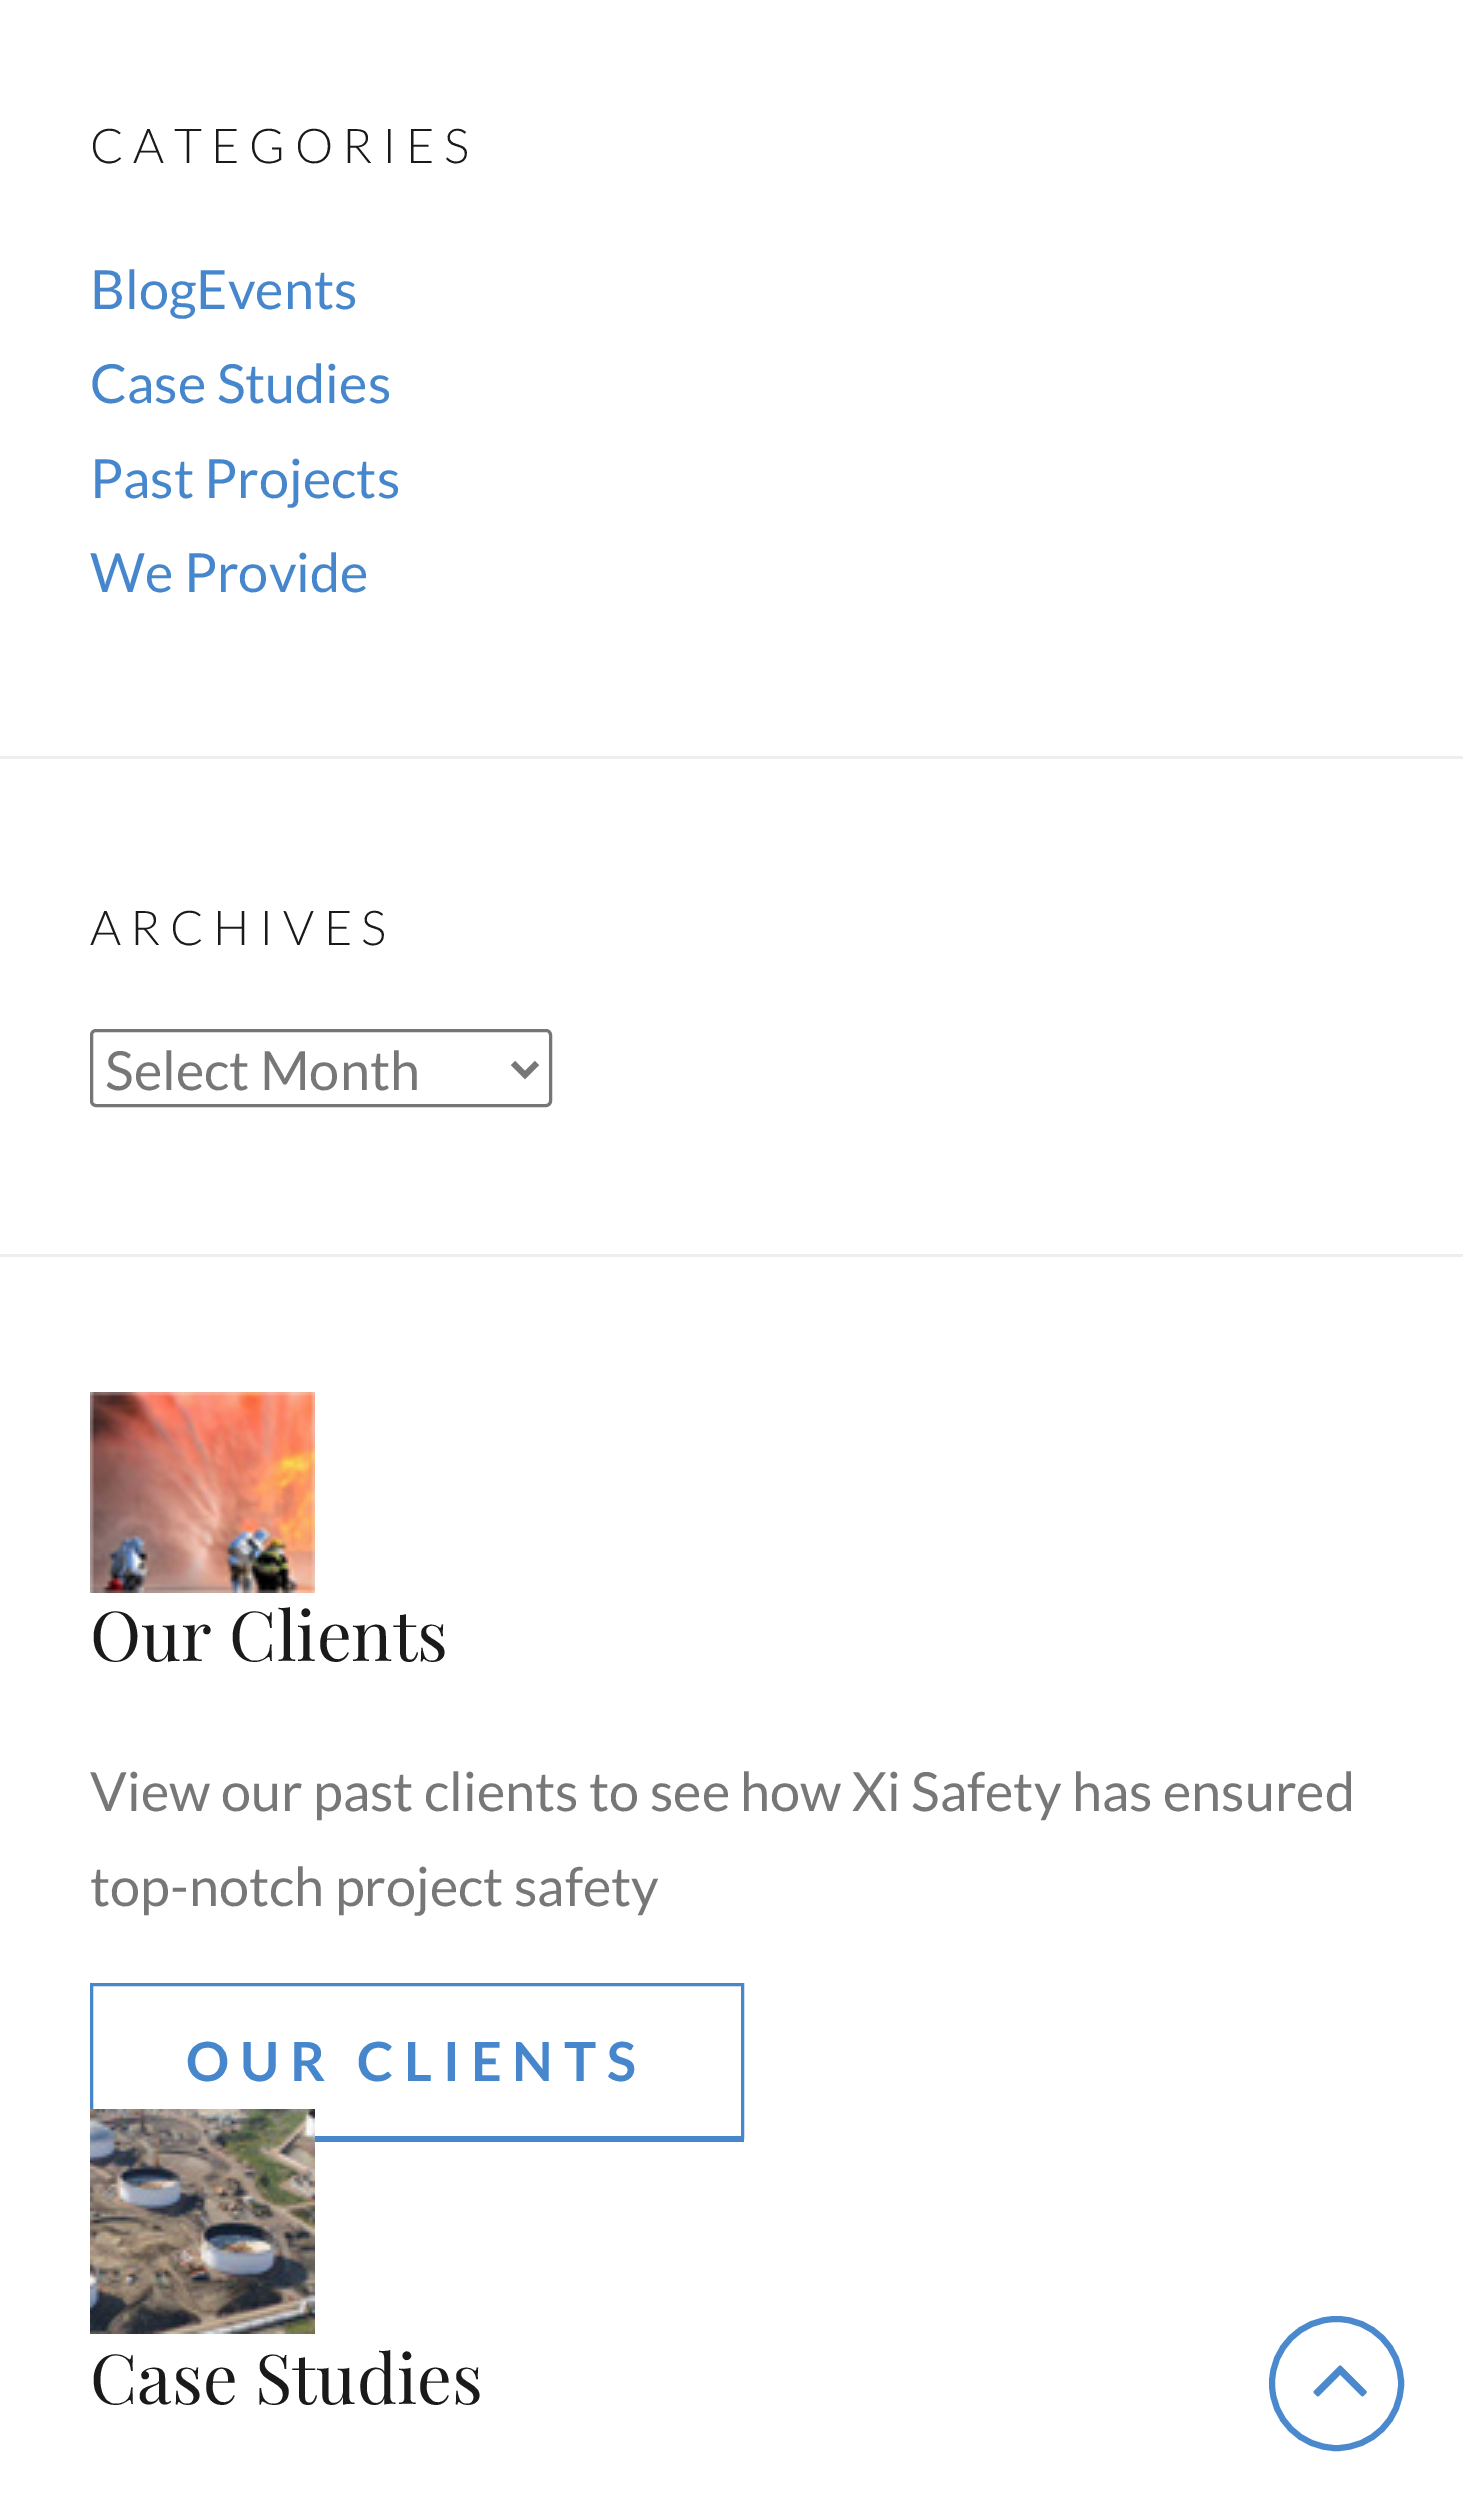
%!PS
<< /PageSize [1463 2510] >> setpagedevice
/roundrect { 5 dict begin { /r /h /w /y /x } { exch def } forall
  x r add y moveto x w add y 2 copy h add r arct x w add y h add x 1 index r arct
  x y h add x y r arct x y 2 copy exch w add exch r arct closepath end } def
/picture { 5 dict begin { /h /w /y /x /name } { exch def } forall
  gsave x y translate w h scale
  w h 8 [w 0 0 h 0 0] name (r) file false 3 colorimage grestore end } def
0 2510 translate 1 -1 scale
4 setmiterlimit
1 setgray
0 0 1463 2510 rectfill
/Lato-Light [48 0 0 -48 0 0] selectfont
0.102 setgray
90 163 moveto 9.5 0 (CATEGORIES) ashow
/Lato-Regular [54 0 0 -54 0 0] selectfont
0.275 0.525 0.8 setrgbcolor
90 309 moveto (BlogEvents) show
90 403 moveto (Case Studies) show
90 498 moveto (Past Projects) show
90 592 moveto (We Provide) show
0.933 setgray
0 756 1463 3 rectfill
/Lato-Light [48 0 0 -48 0 0] selectfont
0.102 setgray
90 945 moveto 9.5 0 (ARCHIVES) ashow
0.463 setgray
3 setlinewidth
91.5 1030.5 459 75 4.5 roundrect stroke
0.467 setgray
6 setlinewidth
newpath 513 1063 moveto 525 1075 lineto 537 1063 lineto stroke
/Lato-Regular [54 0 0 -54 0 0] selectfont
105 1090 moveto (Select Month) show
0.933 setgray
0 1254 1463 3 rectfill
(img1.rgb) 90 1392 225 201 picture
/PlayfairDisplay-Regular [69 0 0 -69 0 0] selectfont
0.102 setgray
90 1661 moveto (Our Clients) show
/Lato-Regular [54 0 0 -54 0 0] selectfont
0.467 setgray
90 1811 moveto (View our past clients to see how Xi Safety has ensured) show
90 1906 moveto (top-notch project safety) show
0.275 0.525 0.8 setrgbcolor
3 setlinewidth
91.5 1984.5 651 153 rectstroke
/Lato-Bold [54 0 0 -54 0 0] selectfont
186 2081 moveto 10.75 0 (OUR CLIENTS) ashow
315 2139 429 3 rectfill
(img2.rgb) 90 2109 225 225 picture
/PlayfairDisplay-Regular [69 0 0 -69 0 0] selectfont
0.102 setgray
90 2404 moveto (Case Studies) show
0.29 0.537 0.804 setrgbcolor
6 setlinewidth
newpath 1336.5 2383.5 64.5 0 360 arc closepath stroke
(img3.rgb) 1313 2365 54 32 picture
showpage
